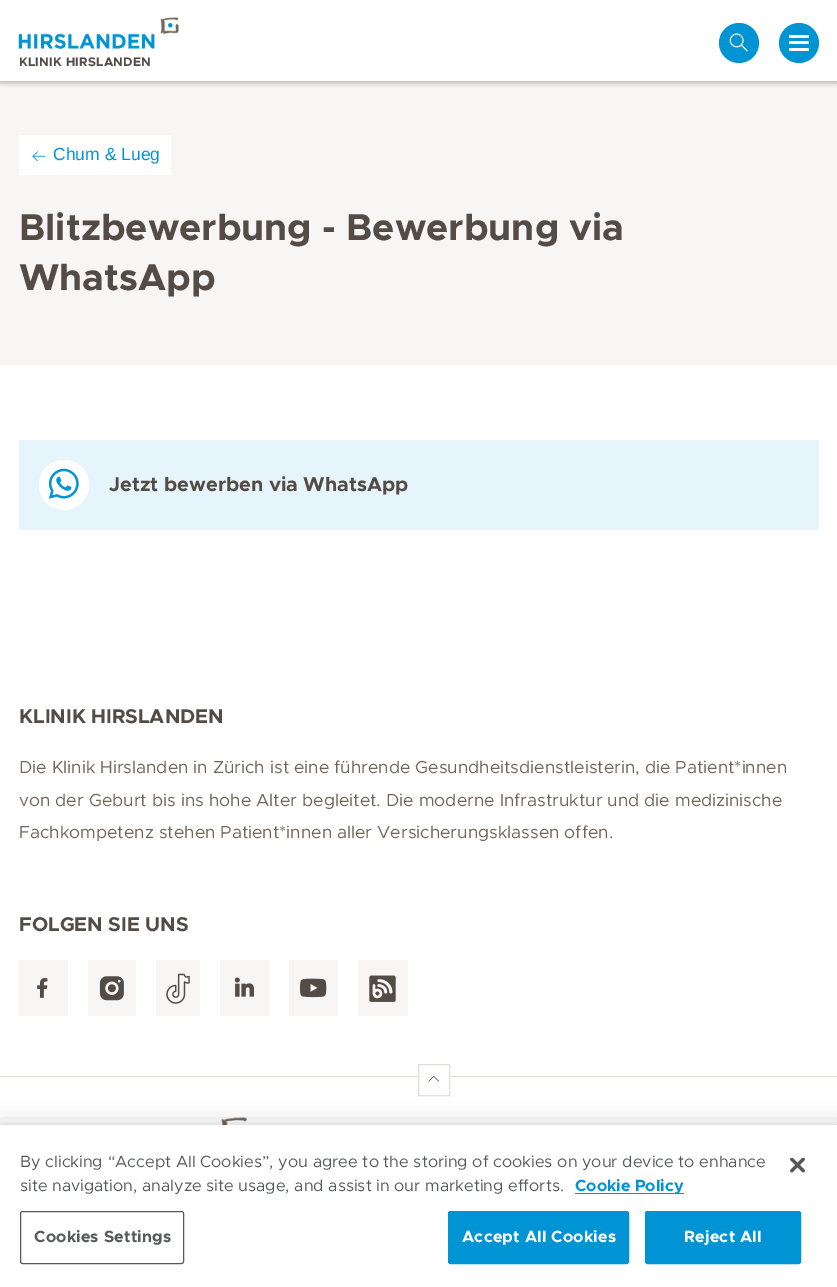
%!PS
<< /PageSize [837 1287] /PageUsesTransparency true >> setpagedevice
/alpha { dup .setfillconstantalpha .setstrokeconstantalpha } def
/roundrect { 5 dict begin { /r /h /w /y /x } { exch def } forall
  x r add y moveto x w add y 2 copy h add r arct x w add y h add x 1 index r arct
  x y h add x y r arct x y 2 copy exch w add exch r arct closepath end } def
/shadow { 12 dict begin { /a /b /q /h /w /y /x } { exch def } forall gsave /was 0 def
  9 -2 -9 { dup b mul 4 div /e exch def 1 sub .425 mul 2.718 exch exp 1 add a .99 .min exch div /now exch def
    1 1 now sub 1 was sub div sub alpha /was now def
    w h .min e 2 mul add 0 gt { x e sub y e sub w e 2 mul add h e 2 mul add
      q e add b .6 mul add w h .min 2 div e add .min 0 .max roundrect fill } if } for grestore end } def
/picture { 5 dict begin { /h /w /y /x /name } { exch def } forall
  gsave x y translate w h scale
  w h 8 [w 0 0 h 0 0] name (r) file false 3 colorimage grestore end } def
0 .pushpdf14devicefilter
0 1287 translate 1 -1 scale
4 setmiterlimit
1 setgray
0 0 837 1287 rectfill
0.969 0.965 0.961 setrgbcolor
0 81 837 284 rectfill
0 setgray
0 1 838 82 0 2.5 0.25 shadow
1 setgray
0 0 837 81 rectfill
(img1.rgb) 18 17 161 32 picture
/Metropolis-Bold [12.5 0 0 -12.5 0 0] selectfont
0.325 0.298 0.275 setrgbcolor
19 66 moveto 0.25 0 (KLINIK HIRSLANDEN) ashow
0 0.58 0.831 setrgbcolor
newpath 739 43 20 0 360 arc closepath fill
(img2.rgb) 729 33 19 19 picture
newpath 799 43 20 0 360 arc closepath fill
1 setgray
789 35 20 3 1.5 roundrect fill
789 41 20 3 1.5 roundrect fill
789 48 20 3 1.5 roundrect fill
19 135 152 40 rectfill
(img3.rgb) 32 151 14 11 picture
/LiberationSans-Regular [17.5 0 0 -17.5 0 0] selectfont
0 0.58 0.831 setrgbcolor
53 160 moveto (Chum & Lueg) show
/Metropolis-Bold [37.5 0 0 -37.5 0 0] selectfont
0.325 0.298 0.275 setrgbcolor
19 240 moveto (Blitzbewerbung - Bewerbung via) show
19 290 moveto (WhatsApp) show
0.902 0.957 0.984 setrgbcolor
19 440 800 90 rectfill
1 setgray
newpath 64 485 25 0 360 arc closepath fill
(img4.rgb) 48 468 31 31 picture
/Metropolis-Bold [20 0 0 -20 0 0] selectfont
0.325 0.298 0.275 setrgbcolor
109 491 moveto (Jetzt bewerben via WhatsApp) show
19 723 moveto (KLINIK HIRSLANDEN) show
/Metropolis-Regular [17.5 0 0 -17.5 0 0] selectfont
0.447 0.4 0.357 setrgbcolor
19 773 moveto (Die Klinik Hirslanden in Zürich ist eine führende Gesundheitsdienstleisterin, die Patient*innen) show
19 806 moveto (von der Geburt bis ins hohe Alter begleitet. Die moderne Infrastruktur und die medizinische) show
19 838 moveto (Fachkompetenz stehen Patient*innen aller Versicherungsklassen offen.) show
/Metropolis-Bold [20 0 0 -20 0 0] selectfont
0.325 0.298 0.275 setrgbcolor
19 931 moveto (FOLGEN SIE UNS) show
0.969 0.965 0.961 setrgbcolor
19 960 49 56 rectfill
(img5.rgb) 37 978 11 20 picture
88 960 48 56 rectfill
(img6.rgb) 99 976 25 25 picture
156 960 44 56 rectfill
(img7.rgb) 166 973 24 31 picture
220 960 49 56 rectfill
(img8.rgb) 234 977 20 20 picture
289 960 49 56 rectfill
(img9.rgb) 299 978 28 20 picture
358 960 50 56 rectfill
(img10.rgb) 369 975 27 27 picture
0.886 0.875 0.859 setrgbcolor
0 1076 837 1 rectfill
1 setgray
419 1076 30 1 rectfill
(img11.rgb) 428 1075 12 7 picture
0.886 0.875 0.859 setrgbcolor
418.5 1064.5 31 31 rectstroke
(img12.rgb) 221 1117 27 8 picture
0 setgray
0 1125 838 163 0 11 0.2 shadow
1 setgray
0 1125 837 162 rectfill
/Metropolis-Regular [16.25 0 0 -16.25 0 0] selectfont
0.345 0.349 0.357 setrgbcolor
20 1167 moveto (By clicking “Accept All Cookies”, you agree to the storing of cookies on your device to enhance) show
20 1191 moveto (site navigation, analyze site usage, and assist in our marketing efforts.) show
0 0.58 0.831 setrgbcolor
575 1193 109 1 rectfill
/Metropolis-Bold [16.25 0 0 -16.25 0 0] selectfont
575 1191 moveto (Cookie Policy) show
0.345 0.349 0.357 setrgbcolor
20.5 1211.5 163 52 2 roundrect stroke
34 1242 moveto 0.2 0 (Cookies Settings) ashow
0 0.58 0.831 setrgbcolor
448.5 1211.5 180 52 2 roundrect gsave fill grestore
stroke
1 setgray
462 1242 moveto 0.2 0 (Accept All Cookies) ashow
0 0.58 0.831 setrgbcolor
645.5 1211.5 155 52 2 roundrect gsave fill grestore
stroke
1 setgray
684 1242 moveto 0.2 0 (Reject All) ashow
(img13.rgb) 790 1158 15 15 picture
.poppdf14devicefilter showpage
